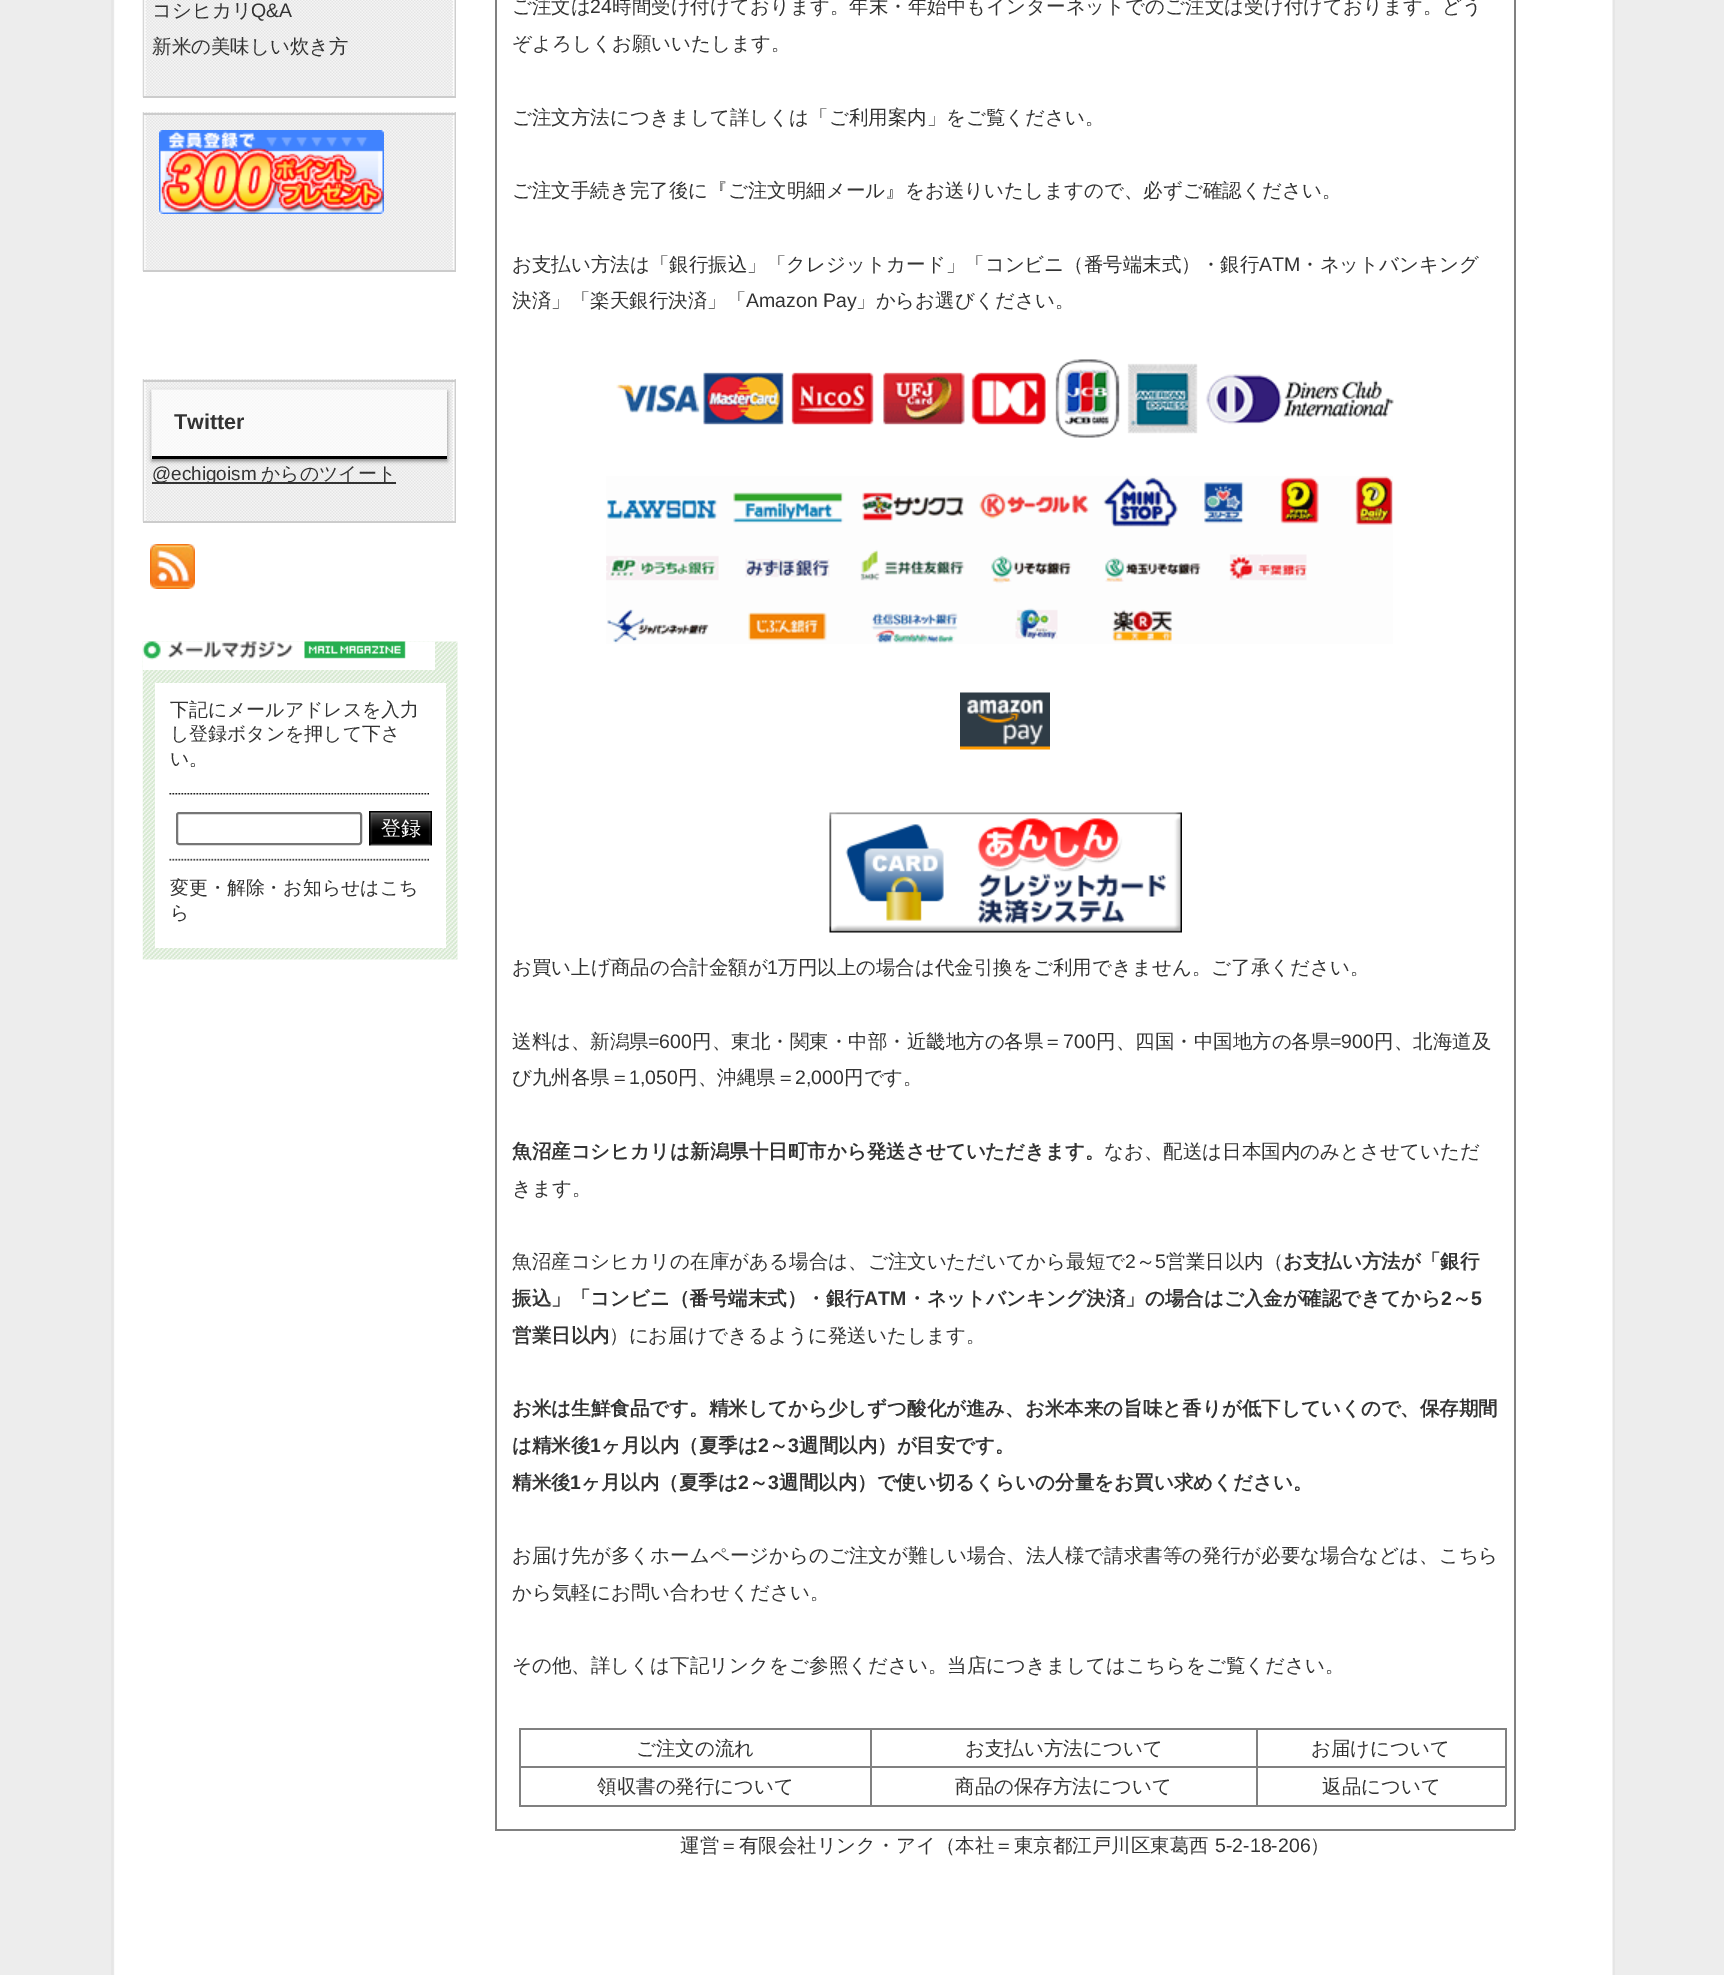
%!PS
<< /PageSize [1724 1975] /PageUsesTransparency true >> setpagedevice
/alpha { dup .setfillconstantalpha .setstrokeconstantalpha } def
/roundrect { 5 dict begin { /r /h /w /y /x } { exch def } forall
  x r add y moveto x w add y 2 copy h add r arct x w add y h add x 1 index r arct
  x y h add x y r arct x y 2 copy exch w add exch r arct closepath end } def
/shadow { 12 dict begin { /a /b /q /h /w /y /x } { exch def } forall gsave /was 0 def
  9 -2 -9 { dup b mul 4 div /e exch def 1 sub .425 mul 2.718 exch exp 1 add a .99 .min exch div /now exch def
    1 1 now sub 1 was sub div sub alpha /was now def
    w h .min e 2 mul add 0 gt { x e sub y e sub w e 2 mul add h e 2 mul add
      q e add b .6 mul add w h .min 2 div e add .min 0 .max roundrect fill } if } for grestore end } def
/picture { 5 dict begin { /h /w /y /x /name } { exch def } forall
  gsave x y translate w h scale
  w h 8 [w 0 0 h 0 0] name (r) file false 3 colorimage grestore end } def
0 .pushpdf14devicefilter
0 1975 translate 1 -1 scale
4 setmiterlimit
0.929 setgray
0 0 1724 1975 rectfill
(img1.rgb) 111 0 1504 1975 picture
(img2.rgb) 142 0 314 97 picture
0.8 setgray
143 96 313 2 rectfill
/WenQuanYiZenHei-Medium [19.5 0 0 -19.5 0 0] selectfont
0.2 setgray
152 17 moveto (コシヒカリ) show
/LiberationSans-Regular [19.5 0 0 -19.5 0 0] selectfont
251 17 moveto (Q&A) show
/WenQuanYiZenHei-Medium [19.5 0 0 -19.5 0 0] selectfont
152 53 moveto (新米の美味しい炊き方) show
(img3.rgb) 142 112 314 159 picture
0.8 setgray
143 113 313 2 rectfill
143 270 313 2 rectfill
(img4.rgb) 159 130 225 84 picture
(img5.rgb) 142 379 314 143 picture
143 380 313 2 rectfill
143 521 313 2 rectfill
0.502 setgray
152 392 295 69 0 2 1 shadow
(img6.rgb) 151 389 296 70 picture
0 setgray
152 456 295 3 rectfill
/LiberationSans-Bold [21.5 0 0 -21.5 0 0] selectfont
0.2 setgray
174 429 moveto (Twitter) show
152 482 244 2 rectfill
/LiberationSans-Regular [18.9 0 0 -18.9 0 0] selectfont
152 480 moveto (@echigoism) show
/WenQuanYiZenHei-Medium [18.9 0 0 -18.9 0 0] selectfont
261 480 moveto (からのツイート) show
(img7.rgb) 150 544 45 45 picture
(img8.rgb) 142 641 316 319 picture
(img9.rgb) 142 641 293 29 picture
1 setgray
155 683 291 265 rectfill
0.2 setgray
170 716 moveto (下記にメールアドレスを入力) show
170 740 moveto (し登録ボタンを押して下さ) show
170 765 moveto (い。) show
(img10.rgb) 169 793 260 68 picture
0.463 setgray
2 setlinewidth
177 813 184 31 2 roundrect stroke
(img11.rgb) 369 811 63 35 picture
/WenQuanYiZenHei-Medium [20 0 0 -20 0 0] selectfont
1 setgray
381 835 moveto (登録) show
/WenQuanYiZenHei-Medium [18.9 0 0 -18.9 0 0] selectfont
0.2 setgray
170 894 moveto (変更・解除・お知らせはこち) show
170 919 moveto (ら) show
0.502 setgray
1514 0 2 1830 rectfill
495 1829 1020 2 rectfill
495 0 2 1830 rectfill
/WenQuanYiZenHei-Medium [19.5 0 0 -19.5 0 0] selectfont
0.2 setgray
512 13 moveto (ご注文は) show
/LiberationSans-Regular [19.5 0 0 -19.5 0 0] selectfont
590 13 moveto (24) show
/WenQuanYiZenHei-Medium [19.5 0 0 -19.5 0 0] selectfont
612 13 moveto (時間受け付けております。年末・年始中もインターネットでのご注文は受け付けております。どう) show
512 50 moveto (ぞよろしくお願いいたします。) show
512 124 moveto (ご注文方法につきまして詳しくは「ご利用案内」をご覧ください。) show
512 197 moveto (ご注文手続き完了後に『ご注文明細メール』をお送りいたしますので、必ずご確認ください。) show
512 271 moveto (お支払い方法は「銀行振込」「クレジットカード」「コンビニ（番号端末式）・銀行) show
/LiberationSans-Regular [19.5 0 0 -19.5 0 0] selectfont
1259 271 moveto (ATM) show
/WenQuanYiZenHei-Medium [19.5 0 0 -19.5 0 0] selectfont
1300 271 moveto (・ネットバンキング) show
512 307 moveto (決済」「楽天銀行決済」「) show
/LiberationSans-Regular [19.5 0 0 -19.5 0 0] selectfont
746 307 moveto (Amazon Pay) show
/WenQuanYiZenHei-Medium [19.5 0 0 -19.5 0 0] selectfont
856 307 moveto (」からお選びください。) show
(img12.rgb) 616 359 778 79 picture
(img13.rgb) 606 476 787 168 picture
(img14.rgb) 960 692 90 58 picture
(img15.rgb) 829 812 353 121 picture
512 974 moveto (お買い上げ商品の合計金額が) show
/LiberationSans-Regular [19.5 0 0 -19.5 0 0] selectfont
767 974 moveto (1) show
/WenQuanYiZenHei-Medium [19.5 0 0 -19.5 0 0] selectfont
778 974 moveto (万円以上の場合は代金引換をご利用できません。ご了承ください。) show
512 1048 moveto (送料は、新潟県) show
/LiberationSans-Regular [19.5 0 0 -19.5 0 0] selectfont
648 1048 moveto (=600) show
/WenQuanYiZenHei-Medium [19.5 0 0 -19.5 0 0] selectfont
692 1048 moveto (円、東北・関東・中部・近畿地方の各県＝) show
/LiberationSans-Regular [19.5 0 0 -19.5 0 0] selectfont
1063 1048 moveto (700) show
/WenQuanYiZenHei-Medium [19.5 0 0 -19.5 0 0] selectfont
1096 1048 moveto (円、四国・中国地方の各県) show
/LiberationSans-Regular [19.5 0 0 -19.5 0 0] selectfont
1330 1048 moveto (=900) show
/WenQuanYiZenHei-Medium [19.5 0 0 -19.5 0 0] selectfont
1374 1048 moveto (円、北海道及) show
512 1084 moveto (び九州各県＝) show
/LiberationSans-Regular [19.5 0 0 -19.5 0 0] selectfont
629 1084 moveto (1,050) show
/WenQuanYiZenHei-Medium [19.5 0 0 -19.5 0 0] selectfont
678 1084 moveto (円、沖縄県＝) show
/LiberationSans-Regular [19.5 0 0 -19.5 0 0] selectfont
795 1084 moveto (2,000) show
/WenQuanYiZenHei-Medium [19.5 0 0 -19.5 0 0] selectfont
844 1084 moveto (円です。) show
/WenQuanYiZenHei-Bold [19.5 0 0 -19.5 0 0] selectfont
512 1158 moveto (魚沼産コシヒカリは新潟県十日町市から発送させていただきます。) show
/WenQuanYiZenHei-Medium [19.5 0 0 -19.5 0 0] selectfont
1104 1158 moveto (なお、配送は日本国内のみとさせていただ) show
512 1195 moveto (きます。) show
512 1268 moveto (魚沼産コシヒカリの在庫がある場合は、ご注文いただいてから最短で) show
/LiberationSans-Regular [19.5 0 0 -19.5 0 0] selectfont
1125 1268 moveto (2) show
/WenQuanYiZenHei-Medium [19.5 0 0 -19.5 0 0] selectfont
1136 1268 moveto (～) show
/LiberationSans-Regular [19.5 0 0 -19.5 0 0] selectfont
1155 1268 moveto (5) show
/WenQuanYiZenHei-Medium [19.5 0 0 -19.5 0 0] selectfont
1166 1268 moveto (営業日以内（) show
/WenQuanYiZenHei-Bold [19.5 0 0 -19.5 0 0] selectfont
1283 1268 moveto (お支払い方法が「銀行) show
512 1305 moveto (振込」「コンビニ（番号端末式）・銀行) show
/LiberationSans-Bold [19.5 0 0 -19.5 0 0] selectfont
864 1305 moveto (ATM) show
/WenQuanYiZenHei-Bold [19.5 0 0 -19.5 0 0] selectfont
907 1305 moveto (・ネットバンキング決済」の場合はご入金が確認できてから) show
/LiberationSans-Bold [19.5 0 0 -19.5 0 0] selectfont
1441 1305 moveto (2) show
/WenQuanYiZenHei-Bold [19.5 0 0 -19.5 0 0] selectfont
1452 1305 moveto (～) show
/LiberationSans-Bold [19.5 0 0 -19.5 0 0] selectfont
1471 1305 moveto (5) show
/WenQuanYiZenHei-Bold [19.5 0 0 -19.5 0 0] selectfont
512 1342 moveto (営業日以内) show
/WenQuanYiZenHei-Medium [19.5 0 0 -19.5 0 0] selectfont
609 1342 moveto (）にお届けできるように発送いたします。) show
/WenQuanYiZenHei-Bold [19.5 0 0 -19.5 0 0] selectfont
512 1415 moveto (お米は生鮮食品です。精米してから少しずつ酸化が進み、お米本来の旨味と香りが低下していくので、保存期間) show
512 1452 moveto (は精米後) show
/LiberationSans-Bold [19.5 0 0 -19.5 0 0] selectfont
590 1452 moveto (1) show
/WenQuanYiZenHei-Bold [19.5 0 0 -19.5 0 0] selectfont
601 1452 moveto (ヶ月以内（夏季は) show
/LiberationSans-Bold [19.5 0 0 -19.5 0 0] selectfont
758 1452 moveto (2) show
/WenQuanYiZenHei-Bold [19.5 0 0 -19.5 0 0] selectfont
769 1452 moveto (～) show
/LiberationSans-Bold [19.5 0 0 -19.5 0 0] selectfont
788 1452 moveto (3) show
/WenQuanYiZenHei-Bold [19.5 0 0 -19.5 0 0] selectfont
799 1452 moveto (週間以内）が目安です。) show
512 1489 moveto (精米後) show
/LiberationSans-Bold [19.5 0 0 -19.5 0 0] selectfont
570 1489 moveto (1) show
/WenQuanYiZenHei-Bold [19.5 0 0 -19.5 0 0] selectfont
581 1489 moveto (ヶ月以内（夏季は) show
/LiberationSans-Bold [19.5 0 0 -19.5 0 0] selectfont
738 1489 moveto (2) show
/WenQuanYiZenHei-Bold [19.5 0 0 -19.5 0 0] selectfont
749 1489 moveto (～) show
/LiberationSans-Bold [19.5 0 0 -19.5 0 0] selectfont
768 1489 moveto (3) show
/WenQuanYiZenHei-Bold [19.5 0 0 -19.5 0 0] selectfont
779 1489 moveto (週間以内）で使い切るくらいの分量をお買い求めください。) show
/WenQuanYiZenHei-Medium [19.5 0 0 -19.5 0 0] selectfont
512 1562 moveto (お届け先が多くホームページからのご注文が難しい場合、法人様で請求書等の発行が必要な場合などは、こちら) show
512 1599 moveto (から気軽にお問い合わせください。) show
512 1672 moveto (その他、詳しくは下記リンクをご参照ください。当店につきましてはこちらをご覧ください。) show
0.502 setgray
519 1728 987 2 rectfill
1505 1728 2 78 rectfill
519 1805 987 2 rectfill
519 1728 2 78 rectfill
0.2 setgray
636 1755 moveto (ご注文の流れ) show
0.502 setgray
1256 1766 250 2 rectfill
1256 1766 2 40 rectfill
870 1766 387 2 rectfill
870 1766 2 40 rectfill
519 1766 353 2 rectfill
870 1728 2 39 rectfill
0.2 setgray
965 1755 moveto (お支払い方法について) show
0.502 setgray
1256 1728 2 39 rectfill
0.2 setgray
1311 1755 moveto (お届けについて) show
597 1793 moveto (領収書の発行について) show
955 1793 moveto (商品の保存方法について) show
1322 1793 moveto (返品について) show
680 1852 moveto (運営＝有限会社リンク・アイ（本社＝東京都江戸川区東葛西) show
/LiberationSans-Regular [19.5 0 0 -19.5 0 0] selectfont
1215 1852 moveto (5-2-18-206) show
/WenQuanYiZenHei-Medium [19.5 0 0 -19.5 0 0] selectfont
1310 1852 moveto (）) show
.poppdf14devicefilter showpage
